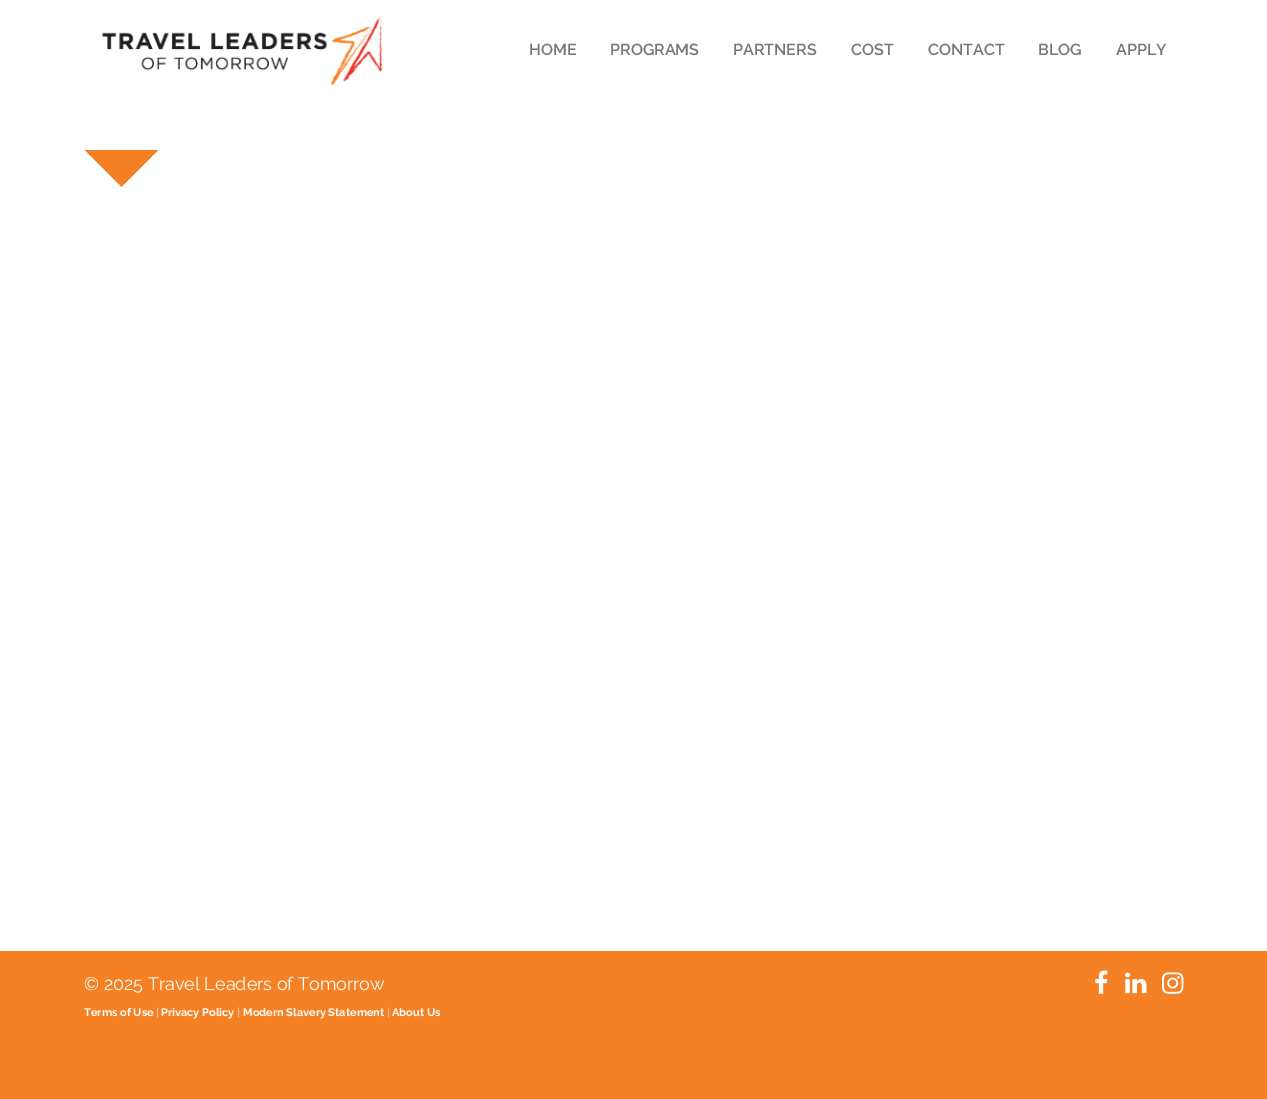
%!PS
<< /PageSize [1267 1099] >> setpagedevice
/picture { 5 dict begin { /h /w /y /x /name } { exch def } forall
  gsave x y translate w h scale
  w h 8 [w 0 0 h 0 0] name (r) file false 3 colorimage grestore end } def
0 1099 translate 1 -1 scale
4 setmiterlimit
1 setgray
0 0 1267 1099 rectfill
(img1.rgb) 102 18 281 68 picture
/Raleway-SemiBold [16 0 0 -16 0 0] selectfont
0.467 setgray
529 55 moveto (HOME) show
610 55 moveto (PROGRAMS) show
733 55 moveto (PARTNERS) show
851 55 moveto (COST) show
928 55 moveto (CONTACT) show
1038 55 moveto (BLOG) show
1116 55 moveto (APPLY) show
(img2.rgb) 85 150 73 37 picture
0.961 0.506 0.141 setrgbcolor
0 951 1267 148 rectfill
/Raleway-Regular [18 0 0 -18 0 0] selectfont
1 setgray
84 990 moveto (© 2025 Travel Leaders of Tomorrow) show
/Raleway-Bold [11 0 0 -11 0 0] selectfont
84 1016 moveto (Terms of Use) show
/Raleway-Regular [11 0 0 -11 0 0] selectfont
156 1016 moveto (|) show
/Raleway-Bold [11 0 0 -11 0 0] selectfont
161 1016 moveto (Privacy Policy) show
/Raleway-Regular [11 0 0 -11 0 0] selectfont
237 1016 moveto (|) show
/Raleway-Bold [11 0 0 -11 0 0] selectfont
243 1016 moveto (Modern Slavery Statement) show
/Raleway-Regular [11 0 0 -11 0 0] selectfont
387 1016 moveto (|) show
/Raleway-Bold [11 0 0 -11 0 0] selectfont
392 1016 moveto (About Us) show
(img3.rgb) 1095 970 13 24 picture
(img4.rgb) 1125 972 22 22 picture
(img5.rgb) 1162 972 22 22 picture
showpage
